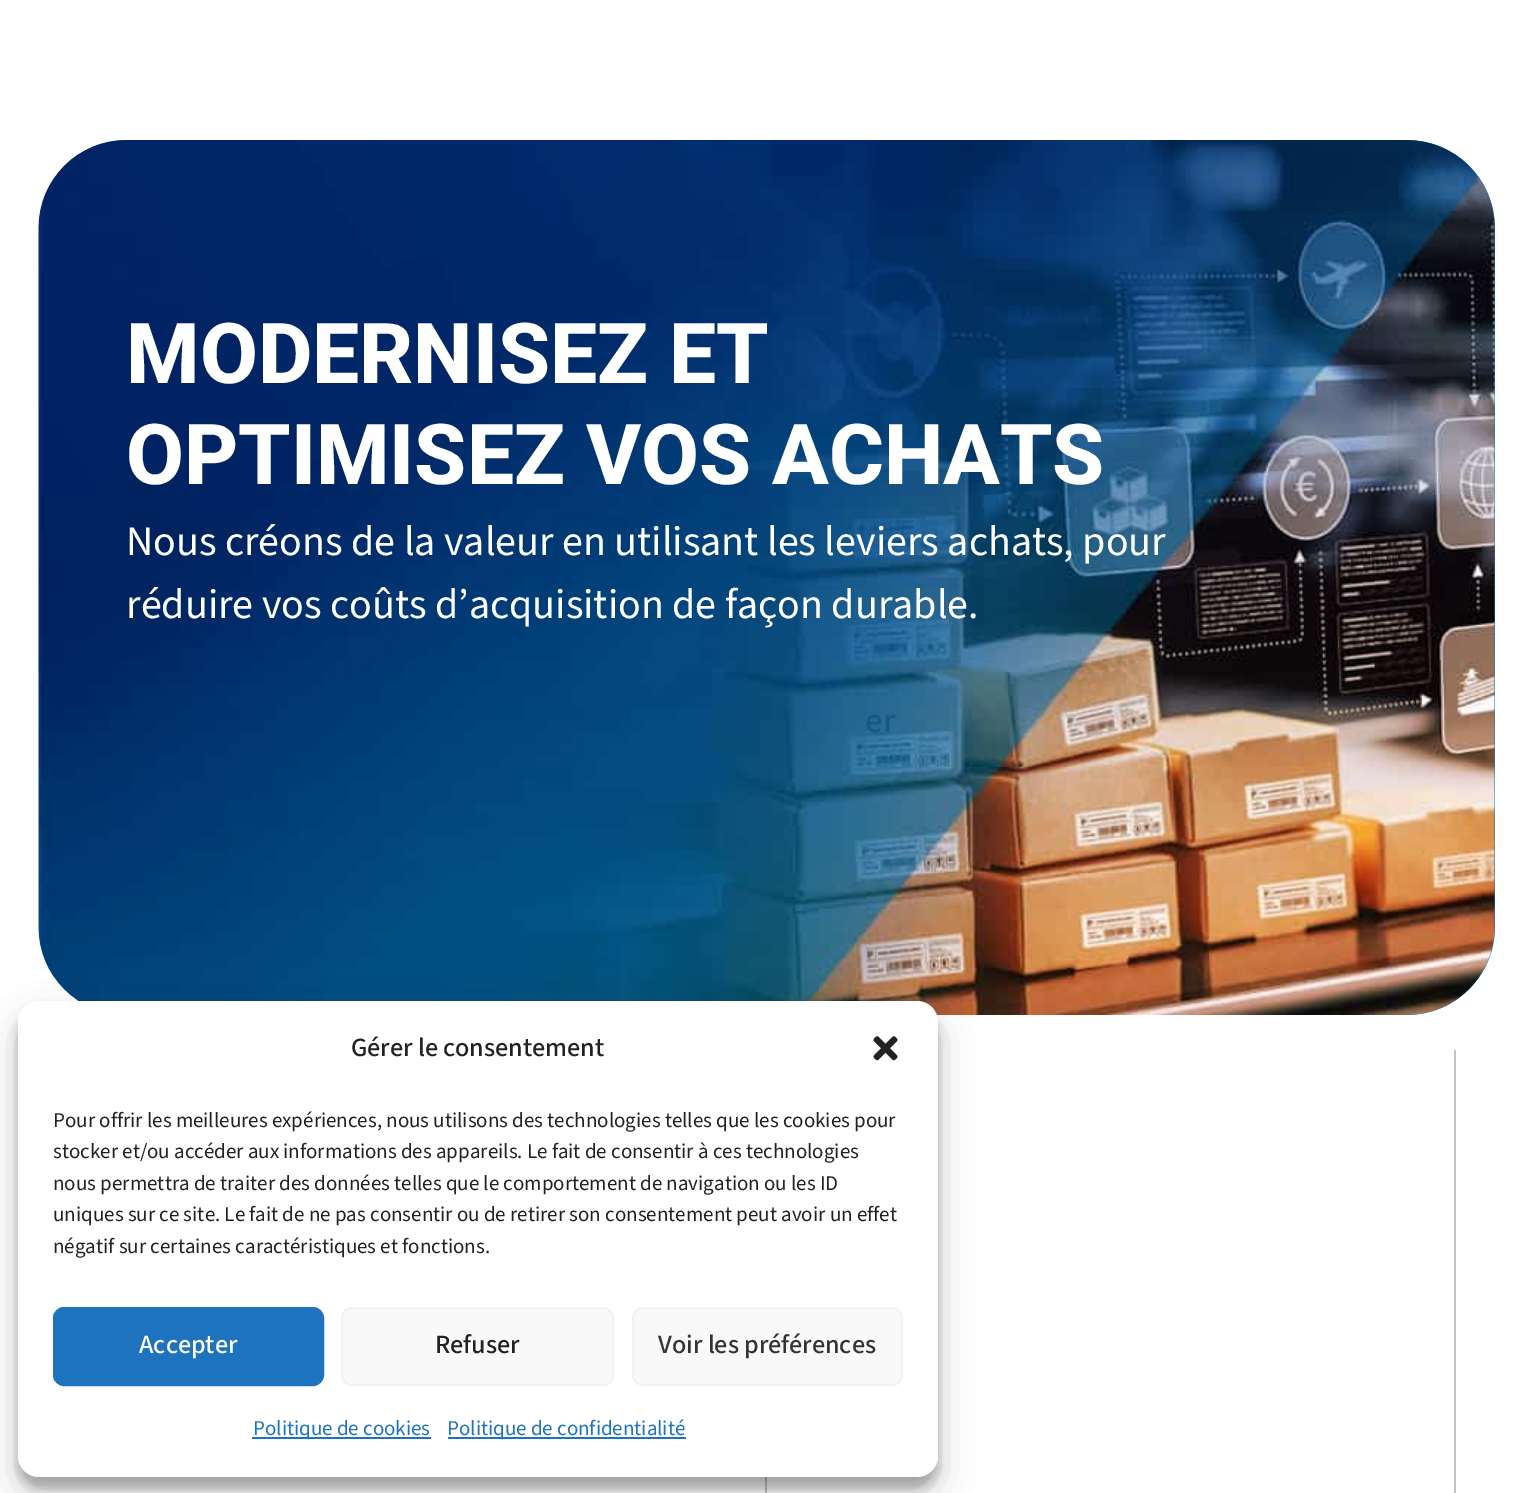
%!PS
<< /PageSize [1533 1493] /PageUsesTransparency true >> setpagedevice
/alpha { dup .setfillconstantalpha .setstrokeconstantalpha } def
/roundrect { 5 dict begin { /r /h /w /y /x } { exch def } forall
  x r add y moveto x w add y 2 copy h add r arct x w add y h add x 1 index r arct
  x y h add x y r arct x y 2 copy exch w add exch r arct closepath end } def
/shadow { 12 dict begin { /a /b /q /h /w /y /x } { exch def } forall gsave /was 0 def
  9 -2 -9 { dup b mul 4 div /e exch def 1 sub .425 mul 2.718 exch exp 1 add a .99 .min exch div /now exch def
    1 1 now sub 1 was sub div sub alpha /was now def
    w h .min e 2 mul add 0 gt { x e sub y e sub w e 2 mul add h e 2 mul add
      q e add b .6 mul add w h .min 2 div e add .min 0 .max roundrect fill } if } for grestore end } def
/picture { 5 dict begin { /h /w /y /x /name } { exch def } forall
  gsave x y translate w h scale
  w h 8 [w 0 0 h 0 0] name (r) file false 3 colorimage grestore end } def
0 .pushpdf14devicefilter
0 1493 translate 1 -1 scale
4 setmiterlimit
1 setgray
0 0 1533 1493 rectfill
0 0.455 0.725 setrgbcolor
39 140 1456 875 88 roundrect fill
(img1.rgb) 38 140 1457 875 picture
/Roboto-ExtraBold [84 0 0 -84 0 0] selectfont
1 setgray
126 383 moveto (MODERNISEZ ET) show
126 484 moveto (OPTIMISEZ VOS ACHATS) show
/SourceSans3-Regular [42 0 0 -42 0 0] selectfont
126 555 moveto (Nous créons de la valeur en utilisant les leviers achats, pour) show
126 618 moveto (réduire vos coûts d’acquisition de façon durable.) show
/SourceSans3-Medium [35 0 0 -35 0 0] selectfont
0.078 0.345 0.525 setrgbcolor
865 732 moveto (er) show
0.745 0.765 0.784 setrgbcolor
765 1477 2 16 rectfill
1454 1050 2 443 rectfill
0 setgray
18 1012 920 476 21 5 0.23 shadow
18 1019 920 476 21 17.5 0.19 shadow
1 setgray
18 1001 920 476 21 roundrect fill
/SourceSans3-Medium [26.25 0 0 -26.25 0 0] selectfont
0.133 setgray
351 1056 moveto (Gérer le consentement) show
(img2.rgb) 873 1036 25 25 picture
/SourceSans3-Regular [21 0 0 -21 0 0] selectfont
53 1127 moveto (Pour offrir les meilleures expériences, nous utilisons des technologies telles que les cookies pour) show
53 1158 moveto (stocker et/ou accéder aux informations des appareils. Le fait de consentir à ces technologies) show
53 1190 moveto (nous permettra de traiter des données telles que le comportement de navigation ou les ID) show
53 1221 moveto (uniques sur ce site. Le fait de ne pas consentir ou de retirer son consentement peut avoir un effet) show
53 1253 moveto (négatif sur certaines caractéristiques et fonctions.) show
0.118 0.451 0.745 setrgbcolor
54 1308 269 77 10 roundrect gsave fill grestore
2 setlinewidth
stroke
/SourceSans3-Medium [26.25 0 0 -26.25 0 0] selectfont
1 setgray
139 1353 moveto (Accepter) show
0.976 setgray
342 1308 271 77 10 roundrect gsave fill grestore
0.949 setgray
stroke
0.133 setgray
435 1353 moveto (Refuser) show
0.976 setgray
633 1308 269 77 10 roundrect gsave fill grestore
0.949 setgray
stroke
0.2 setgray
658 1353 moveto (Voir les préférences) show
0.118 0.451 0.745 setrgbcolor
252 1437 179 2 rectfill
/SourceSans3-Regular [21 0 0 -21 0 0] selectfont
253 1435 moveto (Politique de cookies) show
448 1437 238 2 rectfill
447 1435 moveto (Politique de confidentialité) show
.poppdf14devicefilter showpage
